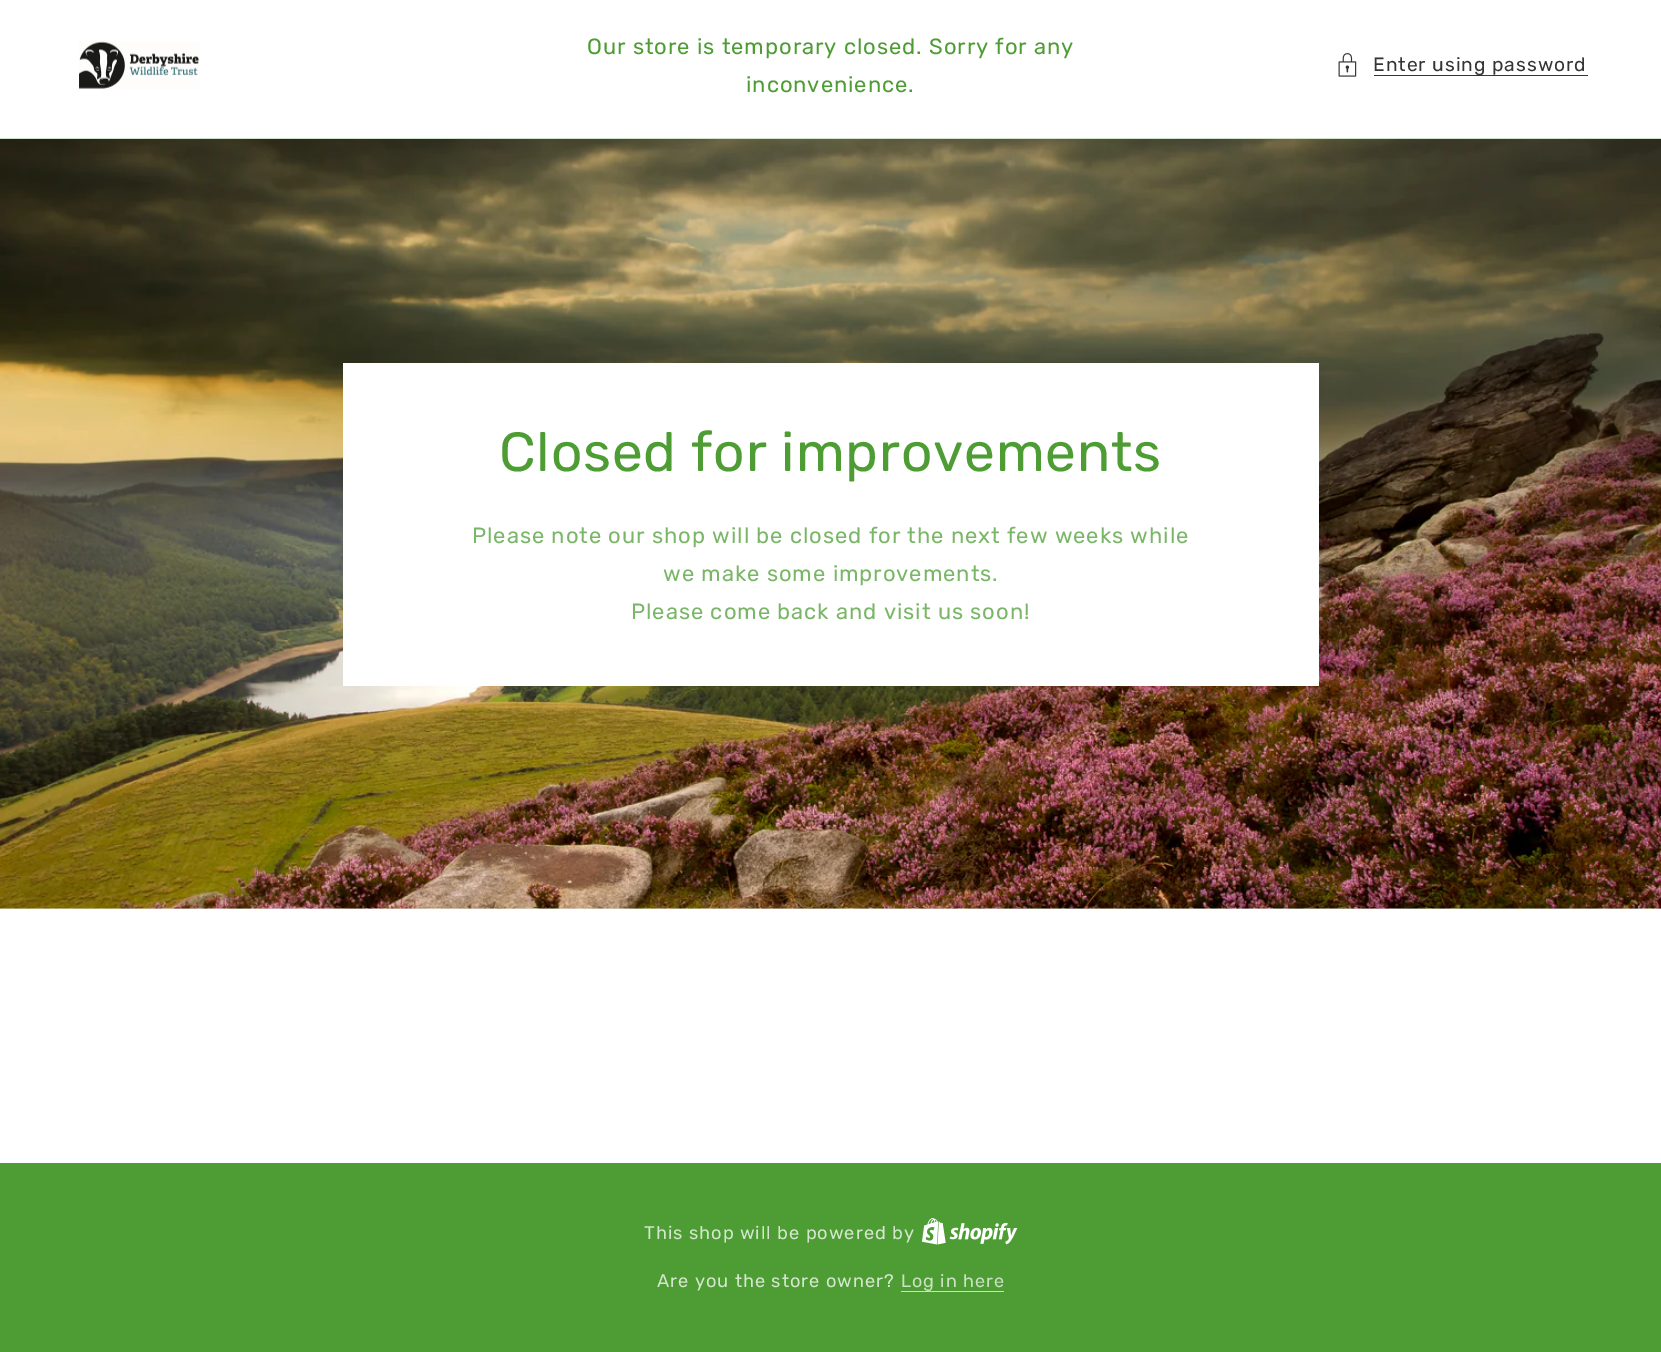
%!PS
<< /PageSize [1661 1352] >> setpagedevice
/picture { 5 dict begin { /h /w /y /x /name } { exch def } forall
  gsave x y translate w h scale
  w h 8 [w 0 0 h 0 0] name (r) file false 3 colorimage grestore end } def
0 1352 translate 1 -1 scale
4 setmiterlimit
1 setgray
0 0 1661 1352 rectfill
(img1.rgb) 79 41 121 48 picture
/Rubik-Regular [22 0 0 -22 0 0] selectfont
0.302 0.616 0.204 setrgbcolor
587 54 moveto 0.95 0 (Our store is temporary closed. Sorry for any) ashow
746 92 moveto 0.95 0 (inconvenience.) ashow
(img2.rgb) 1338 53 19 24 picture
0.212 setgray
1374 75 214 1 rectfill
/Rubik-Regular [19.25 0 0 -19.25 0 0] selectfont
0.208 setgray
1373 71 moveto 0.95 0 (Enter using password) ashow
0.859 0.922 0.839 setrgbcolor
0 138 1661 1 rectfill
0.933 0.965 0.925 setrgbcolor
0 908 1661 1 rectfill
(img3.rgb) 0 138 1661 771 picture
1 setgray
343 363 976 323 rectfill
/Rubik-Regular [55 0 0 -55 0 0] selectfont
0.302 0.616 0.204 setrgbcolor
499 471 moveto 0.8 0 (Closed for improvements) ashow
/Rubik-Regular [22 0 0 -22 0 0] selectfont
0.478 0.714 0.404 setrgbcolor
472 543 moveto 0.95 0 (Please note our shop will be closed for the next few weeks while) ashow
663 581 moveto 0.95 0 (we make some improvements.) ashow
631 619 moveto 0.95 0 (Please come back and visit us soon!) ashow
0.302 0.616 0.204 setrgbcolor
0 1163 1661 189 rectfill
/Rubik-Regular [18.3 0 0 -18.3 0 0] selectfont
0.827 0.906 0.8 setrgbcolor
644 1239 moveto 0.95 0 (This shop will be powered by) ashow
(img4.rgb) 922 1218 96 27 picture
657 1287 moveto 0.95 0 (Are you the store owner?) ashow
/Rubik-Regular [18 0 0 -18 0 0] selectfont
0.792 0.886 0.761 setrgbcolor
901 1287 moveto 0.95 0 (Log in here) ashow
901 1291 103 1 rectfill
showpage
